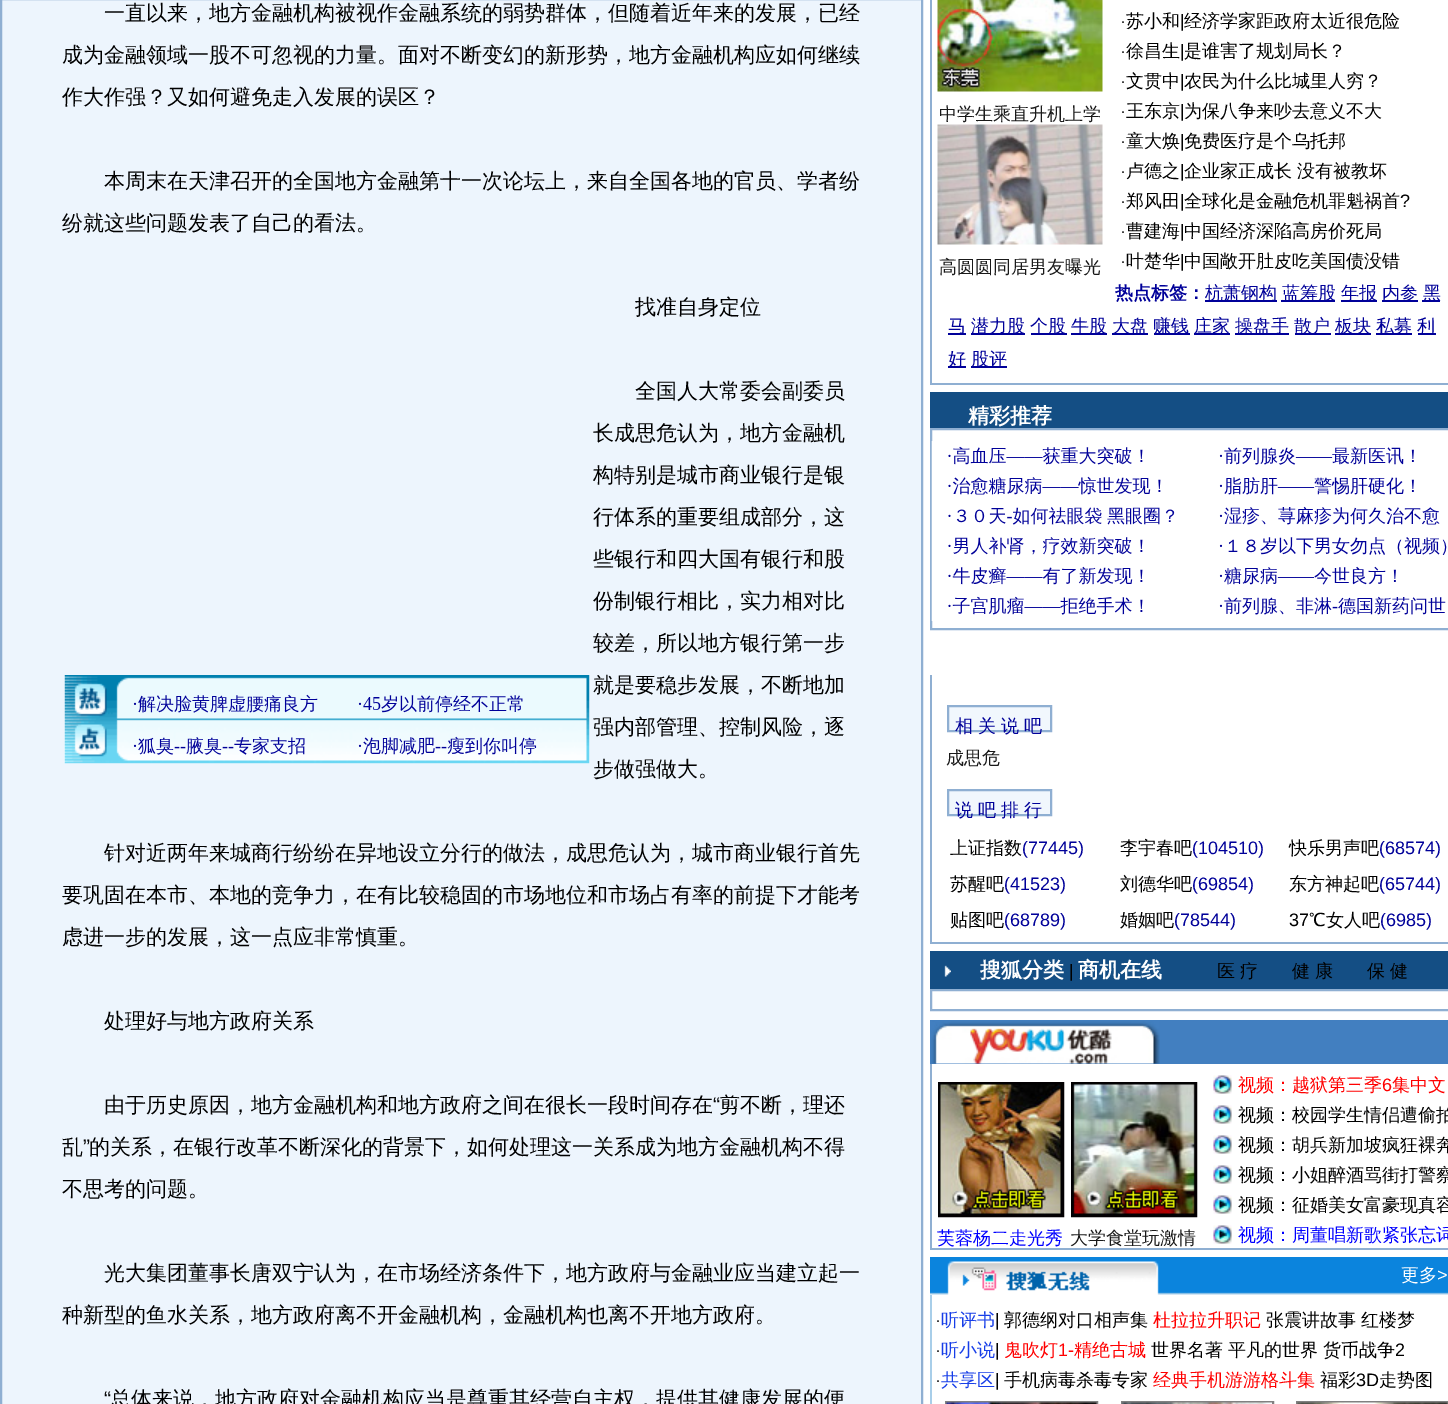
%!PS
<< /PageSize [1448 1404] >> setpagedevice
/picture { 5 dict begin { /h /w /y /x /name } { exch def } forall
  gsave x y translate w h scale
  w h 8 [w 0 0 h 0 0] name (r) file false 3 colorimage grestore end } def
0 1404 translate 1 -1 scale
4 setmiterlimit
1 setgray
0 0 1448 1404 rectfill
0.929 0.961 0.992 setrgbcolor
newpath 1 -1 moveto 922 -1 lineto 922 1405 lineto 1 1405 lineto closepath gsave fill grestore
0.561 0.686 0.824 setrgbcolor
2 setlinewidth
stroke
/WenQuanYiZenHei-Medium [21 0 0 -21 0 0] selectfont
0 setgray
104 20 moveto (一直以来，地方金融机构被视作金融系统的弱势群体，但随着近年来的发展，已经) show
62 62 moveto (成为金融领域一股不可忽视的力量。面对不断变幻的新形势，地方金融机构应如何继续) show
62 104 moveto (作大作强？又如何避免走入发展的误区？) show
104 188 moveto (本周末在天津召开的全国地方金融第十一次论坛上，来自全国各地的官员、学者纷) show
62 230 moveto (纷就这些问题发表了自己的看法。) show
635 314 moveto (找准自身定位) show
(img1.rgb) 64 675 526 89 picture
635 398 moveto (全国人大常委会副委员) show
593 440 moveto (长成思危认为，地方金融机) show
593 482 moveto (构特别是城市商业银行是银) show
593 524 moveto (行体系的重要组成部分，这) show
593 566 moveto (些银行和四大国有银行和股) show
593 608 moveto (份制银行相比，实力相对比) show
593 650 moveto (较差，所以地方银行第一步) show
593 692 moveto (就是要稳步发展，不断地加) show
593 734 moveto (强内部管理、控制风险，逐) show
593 776 moveto (步做强做大。) show
104 860 moveto (针对近两年来城商行纷纷在异地设立分行的做法，成思危认为，城市商业银行首先) show
62 902 moveto (要巩固在本市、本地的竞争力，在有比较稳固的市场地位和市场占有率的前提下才能考) show
62 944 moveto (虑进一步的发展，这一点应非常慎重。) show
104 1028 moveto (处理好与地方政府关系) show
104 1112 moveto (由于历史原因，地方金融机构和地方政府之间在很长一段时间存在) show
/LiberationSans-Regular [21 0 0 -21 0 0] selectfont
713 1112 moveto (“) show
/WenQuanYiZenHei-Medium [21 0 0 -21 0 0] selectfont
719 1112 moveto (剪不断，理还) show
62 1154 moveto (乱) show
/LiberationSans-Regular [21 0 0 -21 0 0] selectfont
83 1154 moveto (”) show
/WenQuanYiZenHei-Medium [21 0 0 -21 0 0] selectfont
89 1154 moveto (的关系，在银行改革不断深化的背景下，如何处理这一关系成为地方金融机构不得) show
62 1196 moveto (不思考的问题。) show
104 1280 moveto (光大集团董事长唐双宁认为，在市场经济条件下，地方政府与金融业应当建立起一) show
62 1322 moveto (种新型的鱼水关系，地方政府离不开金融机构，金融机构也离不开地方政府。) show
/LiberationSans-Regular [21 0 0 -21 0 0] selectfont
104 1406 moveto (“) show
/WenQuanYiZenHei-Medium [21 0 0 -21 0 0] selectfont
110 1406 moveto (总体来说，地方政府对金融机构应当是尊重其经营自主权，提供其健康发展的便) show
0.561 0.686 0.824 setrgbcolor
930 383 518 2 rectfill
930 0 2 384 rectfill
(img2.rgb) 937 0 166 92 picture
/WenQuanYiZenHei-Medium [18 0 0 -18 0 0] selectfont
0.098 setgray
939 120 moveto (中学生乘直升机上学) show
(img3.rgb) 937 124 166 121 picture
939 273 moveto (高圆圆同居男友曝光) show
/LiberationSans-Regular [18 0 0 -18 0 0] selectfont
0 setgray
1120 27 moveto (·) show
/WenQuanYiZenHei-Medium [18 0 0 -18 0 0] selectfont
1126 27 moveto (苏小和) show
/LiberationSans-Regular [18 0 0 -18 0 0] selectfont
1180 27 moveto (|) show
/WenQuanYiZenHei-Medium [18 0 0 -18 0 0] selectfont
1184 27 moveto (经济学家距政府太近很危险) show
/LiberationSans-Regular [18 0 0 -18 0 0] selectfont
1120 57 moveto (·) show
/WenQuanYiZenHei-Medium [18 0 0 -18 0 0] selectfont
1126 57 moveto (徐昌生) show
/LiberationSans-Regular [18 0 0 -18 0 0] selectfont
1180 57 moveto (|) show
/WenQuanYiZenHei-Medium [18 0 0 -18 0 0] selectfont
1184 57 moveto (是谁害了规划局长？) show
/LiberationSans-Regular [18 0 0 -18 0 0] selectfont
1120 87 moveto (·) show
/WenQuanYiZenHei-Medium [18 0 0 -18 0 0] selectfont
1126 87 moveto (文贯中) show
/LiberationSans-Regular [18 0 0 -18 0 0] selectfont
1180 87 moveto (|) show
/WenQuanYiZenHei-Medium [18 0 0 -18 0 0] selectfont
1184 87 moveto (农民为什么比城里人穷？) show
/LiberationSans-Regular [18 0 0 -18 0 0] selectfont
1120 117 moveto (·) show
/WenQuanYiZenHei-Medium [18 0 0 -18 0 0] selectfont
1126 117 moveto (王东京) show
/LiberationSans-Regular [18 0 0 -18 0 0] selectfont
1180 117 moveto (|) show
/WenQuanYiZenHei-Medium [18 0 0 -18 0 0] selectfont
1184 117 moveto (为保八争来吵去意义不大) show
/LiberationSans-Regular [18 0 0 -18 0 0] selectfont
1120 147 moveto (·) show
/WenQuanYiZenHei-Medium [18 0 0 -18 0 0] selectfont
1126 147 moveto (童大焕) show
/LiberationSans-Regular [18 0 0 -18 0 0] selectfont
1180 147 moveto (|) show
/WenQuanYiZenHei-Medium [18 0 0 -18 0 0] selectfont
1184 147 moveto (免费医疗是个乌托邦) show
/LiberationSans-Regular [18 0 0 -18 0 0] selectfont
1120 177 moveto (·) show
/WenQuanYiZenHei-Medium [18 0 0 -18 0 0] selectfont
1126 177 moveto (卢德之) show
/LiberationSans-Regular [18 0 0 -18 0 0] selectfont
1180 177 moveto (|) show
/WenQuanYiZenHei-Medium [18 0 0 -18 0 0] selectfont
1184 177 moveto -0.5 0 32 (企业家正成长 没有被教坏) widthshow
/LiberationSans-Regular [18 0 0 -18 0 0] selectfont
1120 207 moveto (·) show
/WenQuanYiZenHei-Medium [18 0 0 -18 0 0] selectfont
1126 207 moveto (郑风田) show
/LiberationSans-Regular [18 0 0 -18 0 0] selectfont
1180 207 moveto (|) show
/WenQuanYiZenHei-Medium [18 0 0 -18 0 0] selectfont
1184 207 moveto (全球化是金融危机罪魁祸首) show
/LiberationSans-Regular [18 0 0 -18 0 0] selectfont
1400 207 moveto (?) show
1120 237 moveto (·) show
/WenQuanYiZenHei-Medium [18 0 0 -18 0 0] selectfont
1126 237 moveto (曹建海) show
/LiberationSans-Regular [18 0 0 -18 0 0] selectfont
1180 237 moveto (|) show
/WenQuanYiZenHei-Medium [18 0 0 -18 0 0] selectfont
1184 237 moveto (中国经济深陷高房价死局) show
/LiberationSans-Regular [18 0 0 -18 0 0] selectfont
1120 267 moveto (·) show
/WenQuanYiZenHei-Medium [18 0 0 -18 0 0] selectfont
1126 267 moveto (叶楚华) show
/LiberationSans-Regular [18 0 0 -18 0 0] selectfont
1180 267 moveto (|) show
/WenQuanYiZenHei-Medium [18 0 0 -18 0 0] selectfont
1184 267 moveto (中国敞开肚皮吃美国债没错) show
/WenQuanYiZenHei-Bold [18 0 0 -18 0 0] selectfont
0 0 0.6 setrgbcolor
1115 299 moveto (热点标签：) show
1205 300 72 2 rectfill
/WenQuanYiZenHei-Medium [18 0 0 -18 0 0] selectfont
1205 299 moveto (杭萧钢构) show
1281 300 54 2 rectfill
1282 299 moveto (蓝筹股) show
1341 300 36 2 rectfill
1341 299 moveto (年报) show
1382 300 36 2 rectfill
1382 299 moveto (内参) show
1422 300 18 2 rectfill
1423 299 moveto (黑) show
948 333 18 2 rectfill
948 332 moveto (马) show
971 333 54 2 rectfill
971 332 moveto (潜力股) show
1031 333 36 2 rectfill
1030 332 moveto (个股) show
1071 333 36 2 rectfill
1071 332 moveto (牛股) show
1112 333 36 2 rectfill
1112 332 moveto (大盘) show
1154 333 36 2 rectfill
1153 332 moveto (赚钱) show
1194 333 36 2 rectfill
1194 332 moveto (庄家) show
1235 333 54 2 rectfill
1235 332 moveto (操盘手) show
1295 333 36 2 rectfill
1294 332 moveto (散户) show
1335 333 36 2 rectfill
1335 332 moveto (板块) show
1376 333 36 2 rectfill
1376 332 moveto (私募) show
1418 333 18 2 rectfill
1417 332 moveto (利) show
948 366 18 2 rectfill
948 365 moveto (好) show
971 366 36 2 rectfill
971 365 moveto (股评) show
0.078 0.306 0.518 setrgbcolor
930 392 518 36 rectfill
/WenQuanYiZenHei-Bold [21 0 0 -21 0 0] selectfont
1 setgray
968 423 moveto (精彩推荐) show
0.561 0.686 0.824 setrgbcolor
931 429 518 200 rectstroke
(img4.rgb) 931 441 516 180 picture
930 942 518 2 rectfill
930 675 2 269 rectfill
0.945 0.969 0.992 setrgbcolor
newpath 948 706 moveto 1051 706 lineto 1051 731 lineto 948 731 lineto closepath gsave fill grestore
0.561 0.686 0.824 setrgbcolor
stroke
/WenQuanYiZenHei-Medium [18 0 0 -18 0 0] selectfont
0 0 0.6 setrgbcolor
955 732 moveto -0.5 0 32 (相 关 说 吧) widthshow
0.098 setgray
946 764 moveto (成思危) show
0.945 0.969 0.992 setrgbcolor
newpath 948 790 moveto 1051 790 lineto 1051 815 lineto 948 815 lineto closepath gsave fill grestore
0.561 0.686 0.824 setrgbcolor
stroke
0 0 0.6 setrgbcolor
955 816 moveto -0.5 0 32 (说 吧 排 行) widthshow
0 setgray
950 854 moveto (上证指数) show
/LiberationSans-Regular [18 0 0 -18 0 0] selectfont
0 0 0.6 setrgbcolor
1022 854 moveto (\(77445\)) show
/WenQuanYiZenHei-Medium [18 0 0 -18 0 0] selectfont
0 setgray
1120 854 moveto (李宇春吧) show
/LiberationSans-Regular [18 0 0 -18 0 0] selectfont
0 0 0.6 setrgbcolor
1192 854 moveto (\(104510\)) show
/WenQuanYiZenHei-Medium [18 0 0 -18 0 0] selectfont
0 setgray
1289 854 moveto (快乐男声吧) show
/LiberationSans-Regular [18 0 0 -18 0 0] selectfont
0 0 0.6 setrgbcolor
1379 854 moveto (\(68574\)) show
/WenQuanYiZenHei-Medium [18 0 0 -18 0 0] selectfont
0 setgray
950 890 moveto (苏醒吧) show
/LiberationSans-Regular [18 0 0 -18 0 0] selectfont
0 0 0.6 setrgbcolor
1004 890 moveto (\(41523\)) show
/WenQuanYiZenHei-Medium [18 0 0 -18 0 0] selectfont
0 setgray
1120 890 moveto (刘德华吧) show
/LiberationSans-Regular [18 0 0 -18 0 0] selectfont
0 0 0.6 setrgbcolor
1192 890 moveto (\(69854\)) show
/WenQuanYiZenHei-Medium [18 0 0 -18 0 0] selectfont
0 setgray
1289 890 moveto (东方神起吧) show
/LiberationSans-Regular [18 0 0 -18 0 0] selectfont
0 0 0.6 setrgbcolor
1379 890 moveto (\(65744\)) show
/WenQuanYiZenHei-Medium [18 0 0 -18 0 0] selectfont
0 setgray
950 926 moveto (贴图吧) show
/LiberationSans-Regular [18 0 0 -18 0 0] selectfont
0 0 0.6 setrgbcolor
1004 926 moveto (\(68789\)) show
/WenQuanYiZenHei-Medium [18 0 0 -18 0 0] selectfont
0 setgray
1120 926 moveto (婚姻吧) show
/LiberationSans-Regular [18 0 0 -18 0 0] selectfont
0 0 0.6 setrgbcolor
1174 926 moveto (\(78544\)) show
0 setgray
1289 926 moveto (37) show
/WenQuanYiZenHei-Medium [18 0 0 -18 0 0] selectfont
1309 926 moveto (℃女人吧) show
/LiberationSans-Regular [18 0 0 -18 0 0] selectfont
0 0 0.6 setrgbcolor
1380 926 moveto (\(6985\)) show
0.078 0.306 0.518 setrgbcolor
930 951 518 38 rectfill
(img5.rgb) 944 965 7 12 picture
/WenQuanYiZenHei-Bold [21 0 0 -21 0 0] selectfont
1 setgray
980 977 moveto (搜狐分类) show
/LiberationSans-Regular [18 0 0 -18 0 0] selectfont
0 setgray
1069 977 moveto (|) show
/WenQuanYiZenHei-Bold [21 0 0 -21 0 0] selectfont
1 setgray
1078 977 moveto (商机在线) show
/WenQuanYiZenHei-Medium [18 0 0 -18 0 0] selectfont
0 setgray
1217 977 moveto -0.5 0 32 (医 疗) widthshow
1292 977 moveto -0.5 0 32 (健 康) widthshow
1367 977 moveto -0.5 0 32 (保 健) widthshow
0.561 0.686 0.824 setrgbcolor
931 990 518 20 rectstroke
0.259 0.498 0.753 setrgbcolor
930 1020 518 44 rectfill
(img6.rgb) 931 1021 229 43 picture
0.561 0.686 0.824 setrgbcolor
930 1248 518 2 rectfill
930 1064 2 186 rectfill
0.012 0 0.008 setrgbcolor
939 1083 124 133 rectstroke
(img7.rgb) 939 1083 123 132 picture
0 0 1 setrgbcolor
937 1244 moveto (芙蓉杨二走光秀) show
0.012 0 0.008 setrgbcolor
1072 1083 124 133 rectstroke
(img8.rgb) 1072 1083 123 132 picture
0.098 setgray
1070 1244 moveto (大学食堂玩激情) show
(img9.rgb) 1213 1075 19 19 picture
1 0 0 setrgbcolor
1238 1091 moveto (视频：越狱第三季) show
/LiberationSans-Regular [18 0 0 -18 0 0] selectfont
1382 1091 moveto (6) show
/WenQuanYiZenHei-Medium [18 0 0 -18 0 0] selectfont
1392 1091 moveto (集中文) show
(img9.rgb) 1213 1105 19 19 picture
0 setgray
1238 1121 moveto (视频：校园学生情侣遭偷拍) show
(img9.rgb) 1213 1135 19 19 picture
1238 1151 moveto (视频：胡兵新加坡疯狂裸奔) show
(img9.rgb) 1213 1165 19 19 picture
1238 1181 moveto (视频：小姐醉酒骂街打警察) show
(img9.rgb) 1213 1195 19 19 picture
1238 1211 moveto (视频：征婚美女富豪现真容) show
(img9.rgb) 1213 1225 19 19 picture
0 0 1 setrgbcolor
1238 1241 moveto (视频：周董唱新歌紧张忘词) show
(img10.rgb) 930 1257 518 38 picture
1 setgray
1401 1281 moveto (更多) show
/LiberationSans-Regular [18 0 0 -18 0 0] selectfont
1437 1281 moveto (>) show
0.659 0.808 0.914 setrgbcolor
930 1295 2 109 rectfill
0 setgray
935 1326 moveto (·) show
/WenQuanYiZenHei-Medium [18 0 0 -18 0 0] selectfont
0.09 0.243 0.91 setrgbcolor
941 1326 moveto (听评书) show
/LiberationSans-Regular [18 0 0 -18 0 0] selectfont
0 setgray
995 1326 moveto (|) show
/WenQuanYiZenHei-Medium [18 0 0 -18 0 0] selectfont
1004 1326 moveto (郭德纲对口相声集) show
1 0 0 setrgbcolor
1153 1326 moveto (杜拉拉升职记) show
0 setgray
1266 1326 moveto (张震讲故事) show
1361 1326 moveto (红楼梦) show
/LiberationSans-Regular [18 0 0 -18 0 0] selectfont
935 1356 moveto (·) show
/WenQuanYiZenHei-Medium [18 0 0 -18 0 0] selectfont
0.09 0.243 0.91 setrgbcolor
941 1356 moveto (听小说) show
/LiberationSans-Regular [18 0 0 -18 0 0] selectfont
0 setgray
995 1356 moveto (|) show
/WenQuanYiZenHei-Medium [18 0 0 -18 0 0] selectfont
1 0 0 setrgbcolor
1004 1356 moveto (鬼吹灯) show
/LiberationSans-Regular [18 0 0 -18 0 0] selectfont
1058 1356 moveto (1-) show
/WenQuanYiZenHei-Medium [18 0 0 -18 0 0] selectfont
1074 1356 moveto (精绝古城) show
0 setgray
1151 1356 moveto (世界名著) show
1228 1356 moveto (平凡的世界) show
1323 1356 moveto (货币战争) show
/LiberationSans-Regular [18 0 0 -18 0 0] selectfont
1395 1356 moveto (2) show
935 1386 moveto (·) show
/WenQuanYiZenHei-Medium [18 0 0 -18 0 0] selectfont
0.09 0.243 0.91 setrgbcolor
941 1386 moveto (共享区) show
/LiberationSans-Regular [18 0 0 -18 0 0] selectfont
0 setgray
995 1386 moveto (|) show
/WenQuanYiZenHei-Medium [18 0 0 -18 0 0] selectfont
1004 1386 moveto (手机病毒杀毒专家) show
1 0 0 setrgbcolor
1153 1386 moveto (经典手机游游格斗集) show
0 setgray
1320 1386 moveto (福彩) show
/LiberationSans-Regular [18 0 0 -18 0 0] selectfont
1356 1386 moveto (3D) show
/WenQuanYiZenHei-Medium [18 0 0 -18 0 0] selectfont
1379 1386 moveto (走势图) show
0.502 setgray
946 1402 151 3 rectstroke
(img11.rgb) 946 1402 151 2 picture
1122 1402 151 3 rectstroke
(img12.rgb) 1122 1402 150 2 picture
1297 1402 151 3 rectstroke
(img13.rgb) 1297 1402 151 2 picture
showpage
